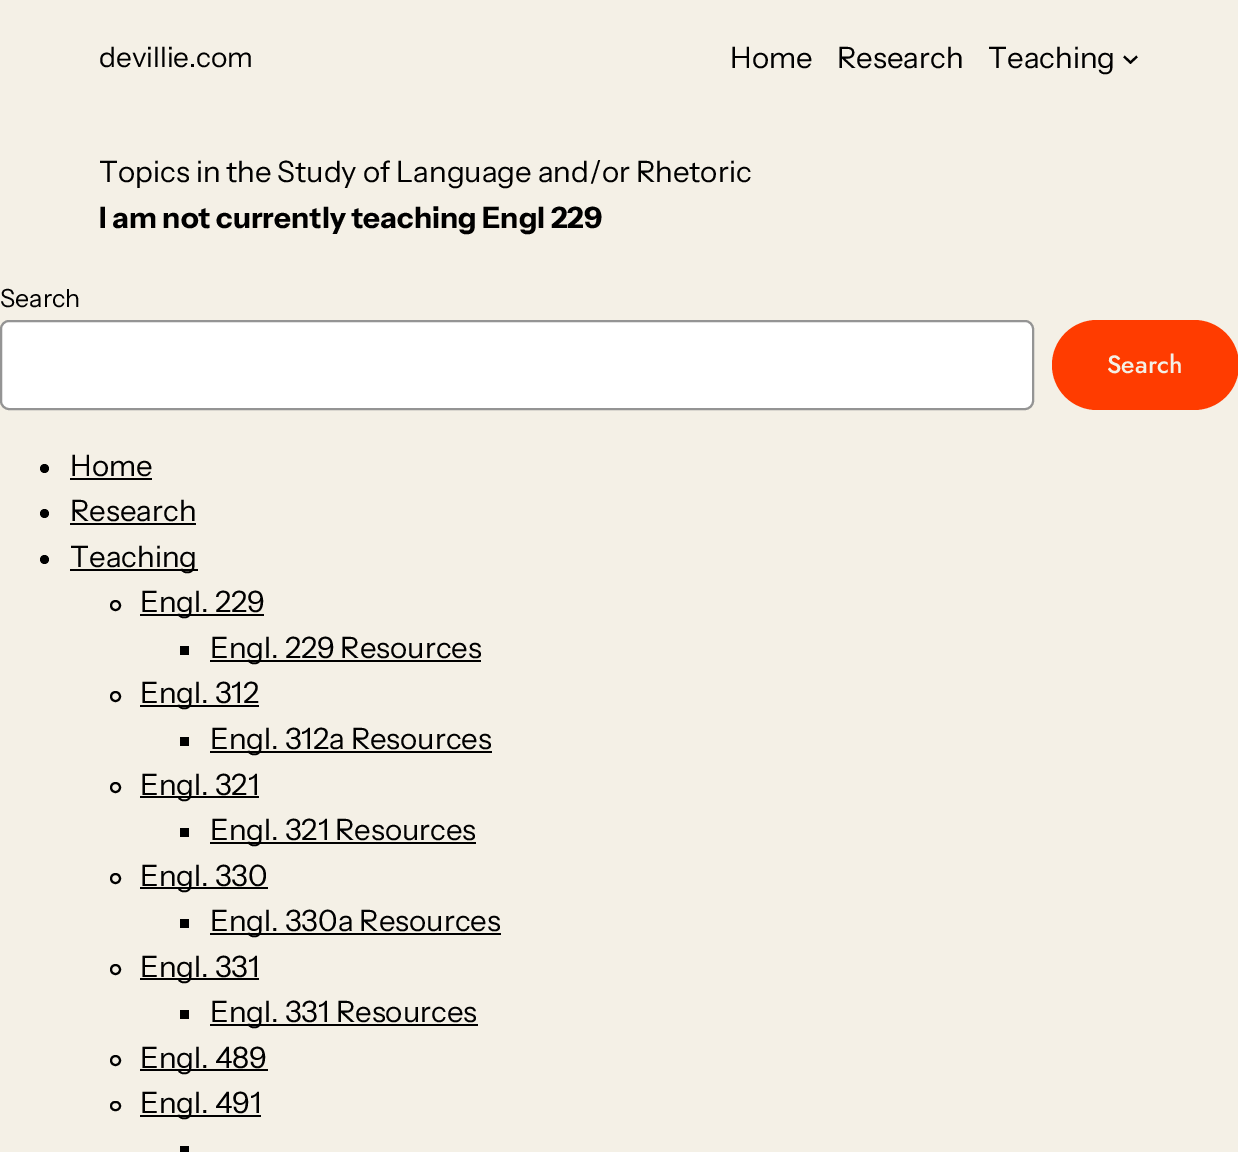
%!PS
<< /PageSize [1238 1152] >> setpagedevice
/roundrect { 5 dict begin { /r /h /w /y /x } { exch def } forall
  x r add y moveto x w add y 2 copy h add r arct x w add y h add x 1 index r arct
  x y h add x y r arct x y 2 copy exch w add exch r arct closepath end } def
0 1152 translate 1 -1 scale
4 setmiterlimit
0.957 0.941 0.902 setrgbcolor
0 0 1238 1152 rectfill
/InstrumentSans-Regular [28 0 0 -28 0 0] selectfont
0 setgray
99 67 moveto (devillie.com) show
/InstrumentSans-Regular [29.4 0 0 -29.4 0 0] selectfont
730 68 moveto (Home) show
837 68 moveto (Research) show
988 68 moveto (Teaching) show
2.2 setlinewidth
newpath 1124 56.5 moveto 1130.5 62.5 lineto 1137 56.5 lineto stroke
99 182 moveto (Topics in the Study of Language and/or Rhetoric) show
/InstrumentSans-Bold [29.4 0 0 -29.4 0 0] selectfont
99 228 moveto (I am not currently teaching Engl 229) show
/InstrumentSans-Regular [25 0 0 -25 0 0] selectfont
0 307 moveto (Search) show
1 setgray
1 321 1032 88 8 roundrect gsave fill grestore
0.58 setgray
2 setlinewidth
stroke
1 0.235 0 setrgbcolor
1052 320 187 90 45 roundrect fill
/Jost-Medium [25 0 0 -25 0 0] selectfont
0.957 0.941 0.902 setrgbcolor
1107 373 moveto (Search) show
0 setgray
newpath 44.5 468.5 4.5 0 360 arc closepath fill
/InstrumentSans-Regular [29.4 0 0 -29.4 0 0] selectfont
70 476 moveto (Home) show
70 478 82 2 rectfill
newpath 44.5 513.5 4.5 0 360 arc closepath fill
70 521 moveto (Research) show
70 523 126 2 rectfill
newpath 44.5 559.5 4.5 0 360 arc closepath fill
70 569 128 2 rectfill
70 567 moveto (Teaching) show
newpath 115.5 605.5 4.5 0 360 arc closepath stroke
140 614 124 2 rectfill
140 612 moveto (Engl. 229) show
180 646 9 9 rectfill
210 660 271 2 rectfill
210 658 moveto (Engl. 229 Resources) show
newpath 115.5 696.5 4.5 0 360 arc closepath stroke
140 705 119 2 rectfill
140 703 moveto (Engl. 312) show
180 737 9 9 rectfill
210 751 282 2 rectfill
210 749 moveto (Engl. 312a Resources) show
newpath 115.5 787.5 4.5 0 360 arc closepath stroke
140 796 119 2 rectfill
140 795 moveto (Engl. 321) show
180 828 9 9 rectfill
210 842 266 2 rectfill
210 840 moveto (Engl. 321 Resources) show
newpath 115.5 878.5 4.5 0 360 arc closepath stroke
140 887 128 2 rectfill
140 886 moveto (Engl. 330) show
180 919 9 9 rectfill
210 933 291 2 rectfill
210 931 moveto (Engl. 330a Resources) show
newpath 115.5 969.5 4.5 0 360 arc closepath stroke
140 978 119 2 rectfill
140 977 moveto (Engl. 331) show
180 1010 9 9 rectfill
210 1024 268 2 rectfill
210 1022 moveto (Engl. 331 Resources) show
newpath 115.5 1060.5 4.5 0 360 arc closepath stroke
140 1069 128 2 rectfill
140 1068 moveto (Engl. 489) show
111 1102 9 8 4 roundrect stroke
140 1115 121 2 rectfill
140 1113 moveto (Engl. 491) show
180 1146 9 6 rectfill
showpage
